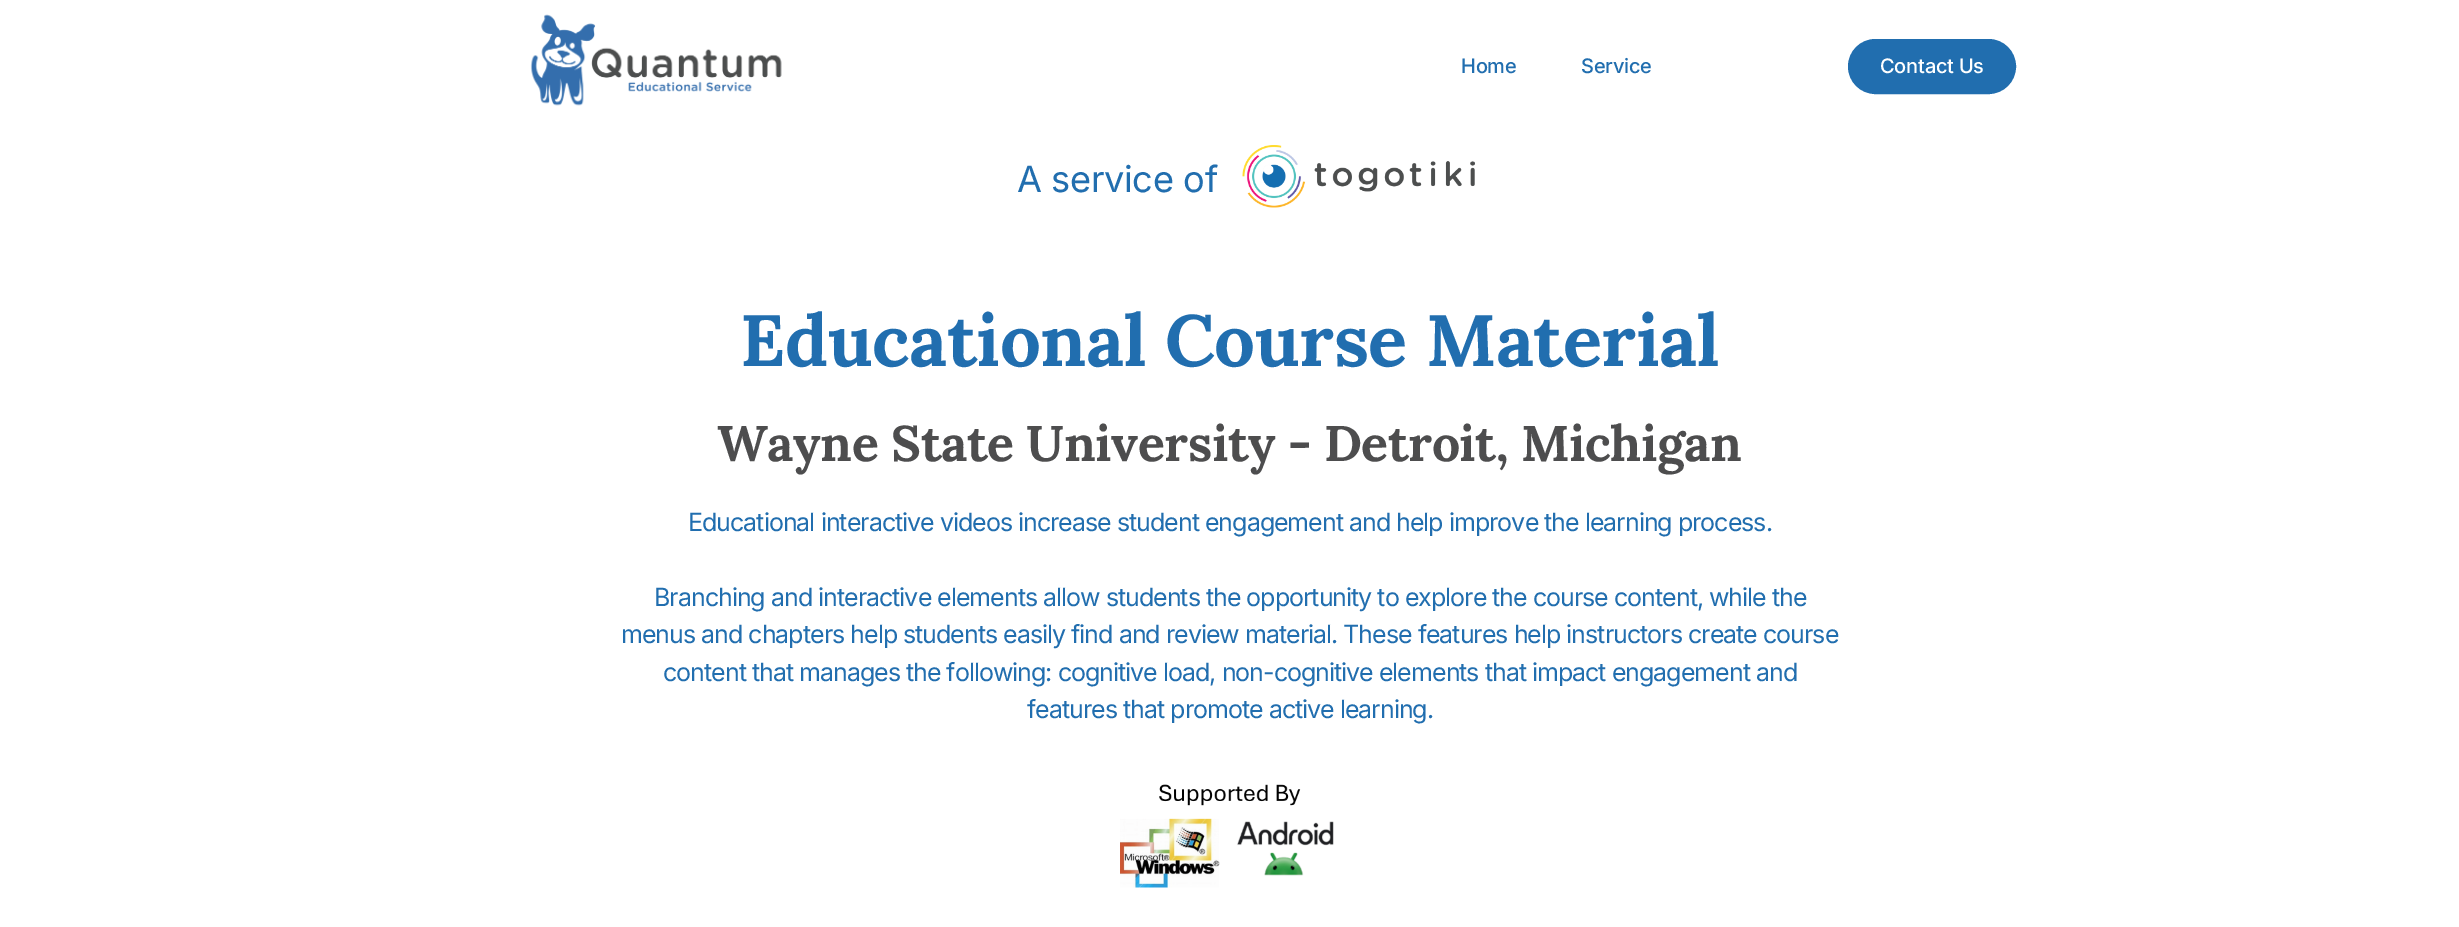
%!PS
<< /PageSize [2459 927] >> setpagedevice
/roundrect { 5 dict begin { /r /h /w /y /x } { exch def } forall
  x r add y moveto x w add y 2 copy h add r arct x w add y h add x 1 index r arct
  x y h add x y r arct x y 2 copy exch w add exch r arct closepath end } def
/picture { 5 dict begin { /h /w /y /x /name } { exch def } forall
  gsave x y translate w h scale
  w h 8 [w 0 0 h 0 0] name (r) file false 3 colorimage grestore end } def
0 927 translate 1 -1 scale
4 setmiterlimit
1 setgray
0 0 2459 927 rectfill
(img1.rgb) 530 14 252 92 picture
/Inter-Medium [20 0 0 -20 0 0] selectfont
0.129 0.431 0.686 setrgbcolor
1461 73 moveto -0.25 0 (Home) ashow
1581 73 moveto -0.25 0 (Service) ashow
1849.5 40.5 165 52 26 roundrect gsave fill grestore
3 setlinewidth
stroke
1 setgray
1880 73 moveto -0.25 0 (Contact Us) ashow
/Inter-Regular [36.25 0 0 -36.25 0 0] selectfont
0.129 0.431 0.686 setrgbcolor
1017 192 moveto -0.4 0 (A service of) ashow
(img2.rgb) 1242 145 233 63 picture
/Lora-Bold [72.5 0 0 -72.5 0 0] selectfont
740 366 moveto -0.4 0 (Educational Course Material) ashow
/Lora-Bold [50 0 0 -50 0 0] selectfont
0.302 0.302 0.306 setrgbcolor
717 461 moveto -0.4 0 (Wayne State University - Detroit, Michigan) ashow
/Inter-Regular [25 0 0 -25 0 0] selectfont
0.129 0.431 0.686 setrgbcolor
688 531 moveto -1 0 (Educational interactive videos increase student engagement and help improve the learning process.) ashow
654 606 moveto -1 0 (Branching and interactive elements allow students the opportunity to explore the course content, while the) ashow
621 643 moveto -1 0 (menus and chapters help students easily find and review material. These features help instructors create course) ashow
663 681 moveto -1 0 (content that manages the following: cognitive load, non-cognitive elements that impact engagement and) ashow
1027 718 moveto -1 0 (features that promote active learning.) ashow
(img3.rgb) 1120 784 214 104 picture
showpage
